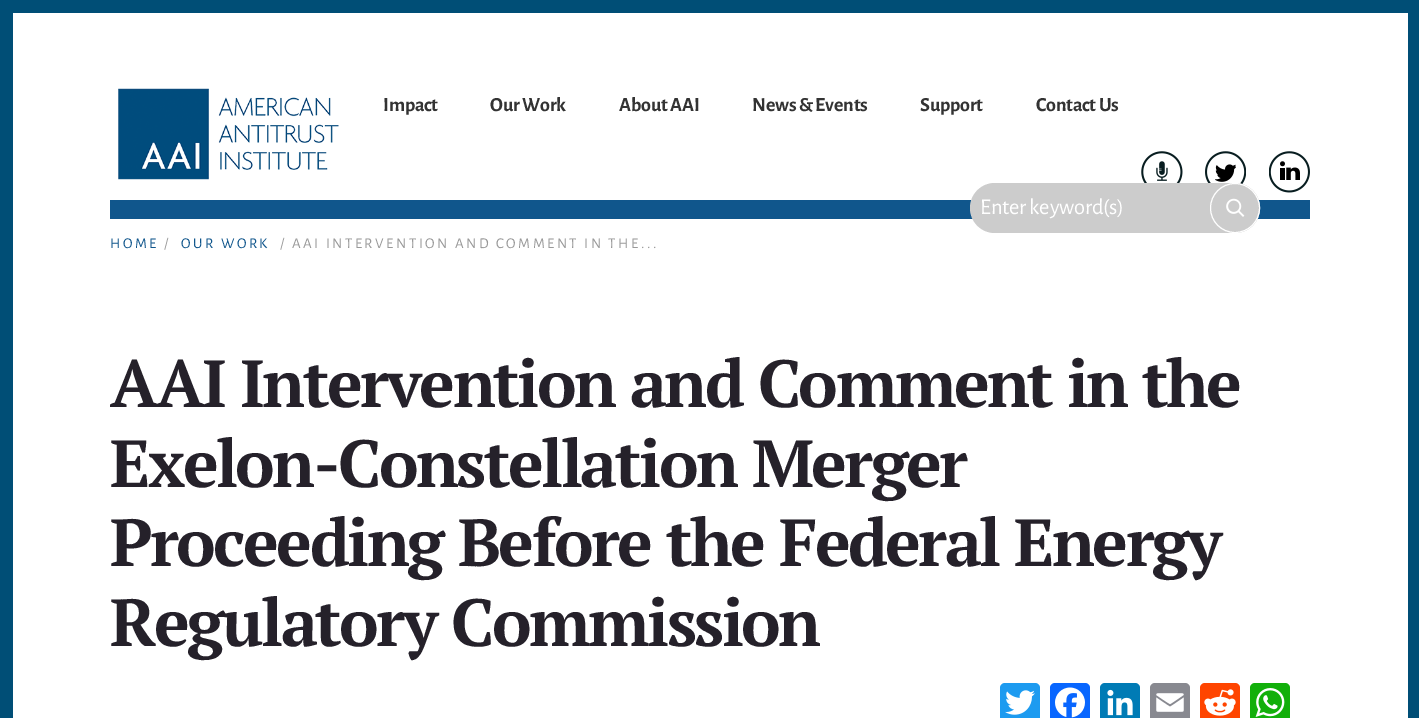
%!PS
<< /PageSize [1419 718] >> setpagedevice
/roundrect { 5 dict begin { /r /h /w /y /x } { exch def } forall
  x r add y moveto x w add y 2 copy h add r arct x w add y h add x 1 index r arct
  x y h add x y r arct x y 2 copy exch w add exch r arct closepath end } def
/picture { 5 dict begin { /h /w /y /x /name } { exch def } forall
  gsave x y translate w h scale
  w h 8 [w 0 0 h 0 0] name (r) file false 3 colorimage grestore end } def
0 718 translate 1 -1 scale
4 setmiterlimit
0 0.306 0.463 setrgbcolor
0 0 1419 718 rectfill
1 setgray
13 13 1395 705 rectfill
0.063 0.337 0.549 setrgbcolor
110 200 1200 19 rectfill
(img1.rgb) 118 88 221 92 picture
/AlegreyaSans-Bold [20 0 0 -20 0 0] selectfont
0.2 setgray
383 111 moveto -0.25 0 (Impact) ashow
490 111 moveto -0.25 0 (Our Work) ashow
619 111 moveto -0.25 0 (About AAI) ashow
752 111 moveto -0.25 0 (News & Events) ashow
920 111 moveto -0.25 0 (Support) ashow
1036 111 moveto -0.25 0 (Contact Us) ashow
(img2.rgb) 1141 151 42 32 picture
(img3.rgb) 1205 151 41 34 picture
(img4.rgb) 1269 151 41 42 picture
0.8 setgray
970 183 290 50 25 roundrect fill
/AlegreyaSans-Regular [22.5 0 0 -22.5 0 0] selectfont
1 setgray
980 214 moveto -0.25 0 (Enter keyword\(s\)) ashow
0.8 setgray
newpath 1235 208 24.5 0 360 arc closepath gsave fill grestore
1 setgray
stroke
(img5.rgb) 1226 198 19 19 picture
/AlegreyaSans-Regular [15 0 0 -15 0 0] selectfont
0.063 0.337 0.549 setrgbcolor
110 248 moveto 2.5 0 (HOME) ashow
0.6 setgray
164 248 moveto 2.5 0 (/) ashow
0.063 0.337 0.549 setrgbcolor
181 248 moveto 2.5 0 (OUR WORK) ashow
0.6 setgray
280 248 moveto 2.5 0 (/ AAI INTERVENTION AND COMMENT IN THE...) ashow
/PTSerif-Bold [66.6 0 0 -66.6 0 0] selectfont
0.145 0.129 0.165 setrgbcolor
110 407 moveto -2.5 0 (AAI Intervention and Comment in the) ashow
110 487 moveto -2.5 0 (Exelon-Constellation Merger) ashow
110 566 moveto -2.5 0 (Proceeding Before the Federal Energy) ashow
110 646 moveto -2.5 0 (Regulatory Commission) ashow
0.114 0.608 0.941 setrgbcolor
1000 683 40 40 5 roundrect fill
(img6.rgb) 1005 690 30 25 picture
0.031 0.4 1 setrgbcolor
1050 683 40 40 5 roundrect fill
(img7.rgb) 1055 687 30 31 picture
0 0.482 0.71 setrgbcolor
1100 683 40 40 5 roundrect fill
(img8.rgb) 1107 689 26 27 picture
0.533 0.537 0.565 setrgbcolor
1150 683 40 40 5 roundrect fill
(img9.rgb) 1156 693 28 19 picture
1 0.271 0 setrgbcolor
1200 683 40 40 5 roundrect fill
(img10.rgb) 1204 689 32 27 picture
0.071 0.686 0.039 setrgbcolor
1250 683 40 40 5 roundrect fill
(img11.rgb) 1255 688 30 29 picture
showpage
